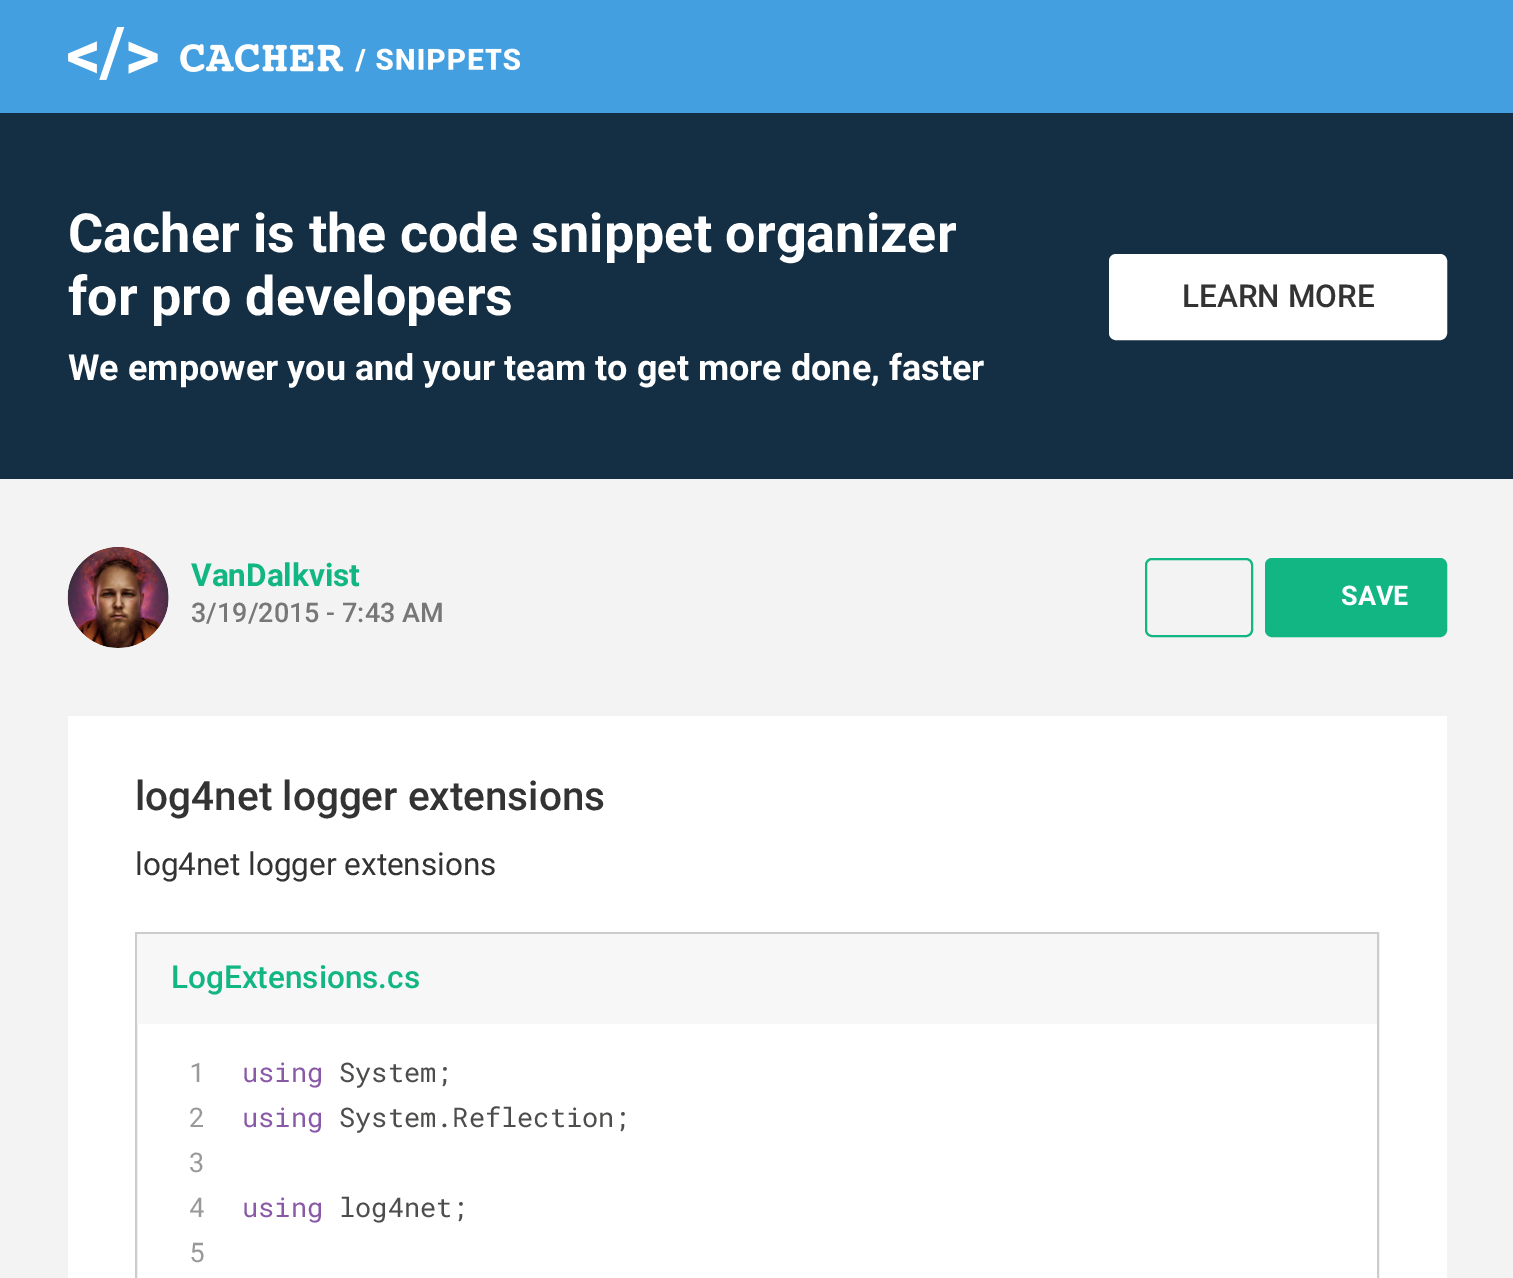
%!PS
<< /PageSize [1513 1278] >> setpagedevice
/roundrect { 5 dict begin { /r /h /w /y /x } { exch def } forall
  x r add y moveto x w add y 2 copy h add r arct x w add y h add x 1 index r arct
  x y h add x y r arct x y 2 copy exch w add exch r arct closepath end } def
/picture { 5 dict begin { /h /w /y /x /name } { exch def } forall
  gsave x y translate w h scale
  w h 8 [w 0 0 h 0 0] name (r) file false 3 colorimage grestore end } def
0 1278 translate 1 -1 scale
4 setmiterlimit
0.953 setgray
0 0 1513 1278 rectfill
0.263 0.624 0.878 setrgbcolor
0 0 1513 113 rectfill
(img1.rgb) 68 27 452 53 picture
0.078 0.184 0.263 setrgbcolor
0 113 1513 366 rectfill
/Roboto-Bold [54 0 0 -54 0 0] selectfont
1 setgray
68 252 moveto (Cacher is the code snippet organizer) show
68 315 moveto (for pro developers) show
/Roboto-Bold [36 0 0 -36 0 0] selectfont
68 380 moveto (We empower you and your team to get more done, faster) show
1110 255 336 84 6 roundrect gsave fill grestore
2 setlinewidth
stroke
/Roboto-Medium [31.5 0 0 -31.5 0 0] selectfont
0.2 setgray
1182 307 moveto (LEARN MORE) show
(img2.rgb) 67 547 102 101 picture
/Roboto-Bold [31.5 0 0 -31.5 0 0] selectfont
0.067 0.714 0.514 setrgbcolor
191 586 moveto (VanDalkvist) show
/Roboto-Medium [27 0 0 -27 0 0] selectfont
0.467 setgray
191 622 moveto (3/19/2015 - 7:43 AM) show
0.067 0.714 0.514 setrgbcolor
1146 559 106 77 6 roundrect stroke
1266 559 180 77 6 roundrect gsave fill grestore
stroke
/Roboto-Bold [27 0 0 -27 0 0] selectfont
1 setgray
1341 605 moveto (SAVE) show
68 716 1379 562 rectfill
/Roboto-Medium [40.5 0 0 -40.5 0 0] selectfont
0.2 setgray
135 810 moveto (log4net logger extensions) show
/Roboto-Regular [31.5 0 0 -31.5 0 0] selectfont
135 875 moveto (log4net logger extensions) show
0.8 setgray
136 933 1242 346 rectstroke
0.969 setgray
137 934 1240 90 rectfill
/Roboto-Medium [31.5 0 0 -31.5 0 0] selectfont
0.067 0.714 0.514 setrgbcolor
171 988 moveto (LogExtensions.cs) show
/RobotoMono-Regular [27 0 0 -27 0 0] selectfont
0.6 setgray
189 1082 moveto (1) show
0.537 0.349 0.659 setrgbcolor
242 1082 moveto (using) show
0.302 0.302 0.298 setrgbcolor
339 1082 moveto (System;) show
0.6 setgray
189 1127 moveto (2) show
0.537 0.349 0.659 setrgbcolor
242 1127 moveto (using) show
0.302 0.302 0.298 setrgbcolor
339 1127 moveto (System.Reflection;) show
0.6 setgray
189 1172 moveto (3) show
189 1217 moveto (4) show
0.537 0.349 0.659 setrgbcolor
242 1217 moveto (using) show
0.302 0.302 0.298 setrgbcolor
339 1217 moveto (log4net;) show
0.6 setgray
189 1262 moveto (5) show
showpage
